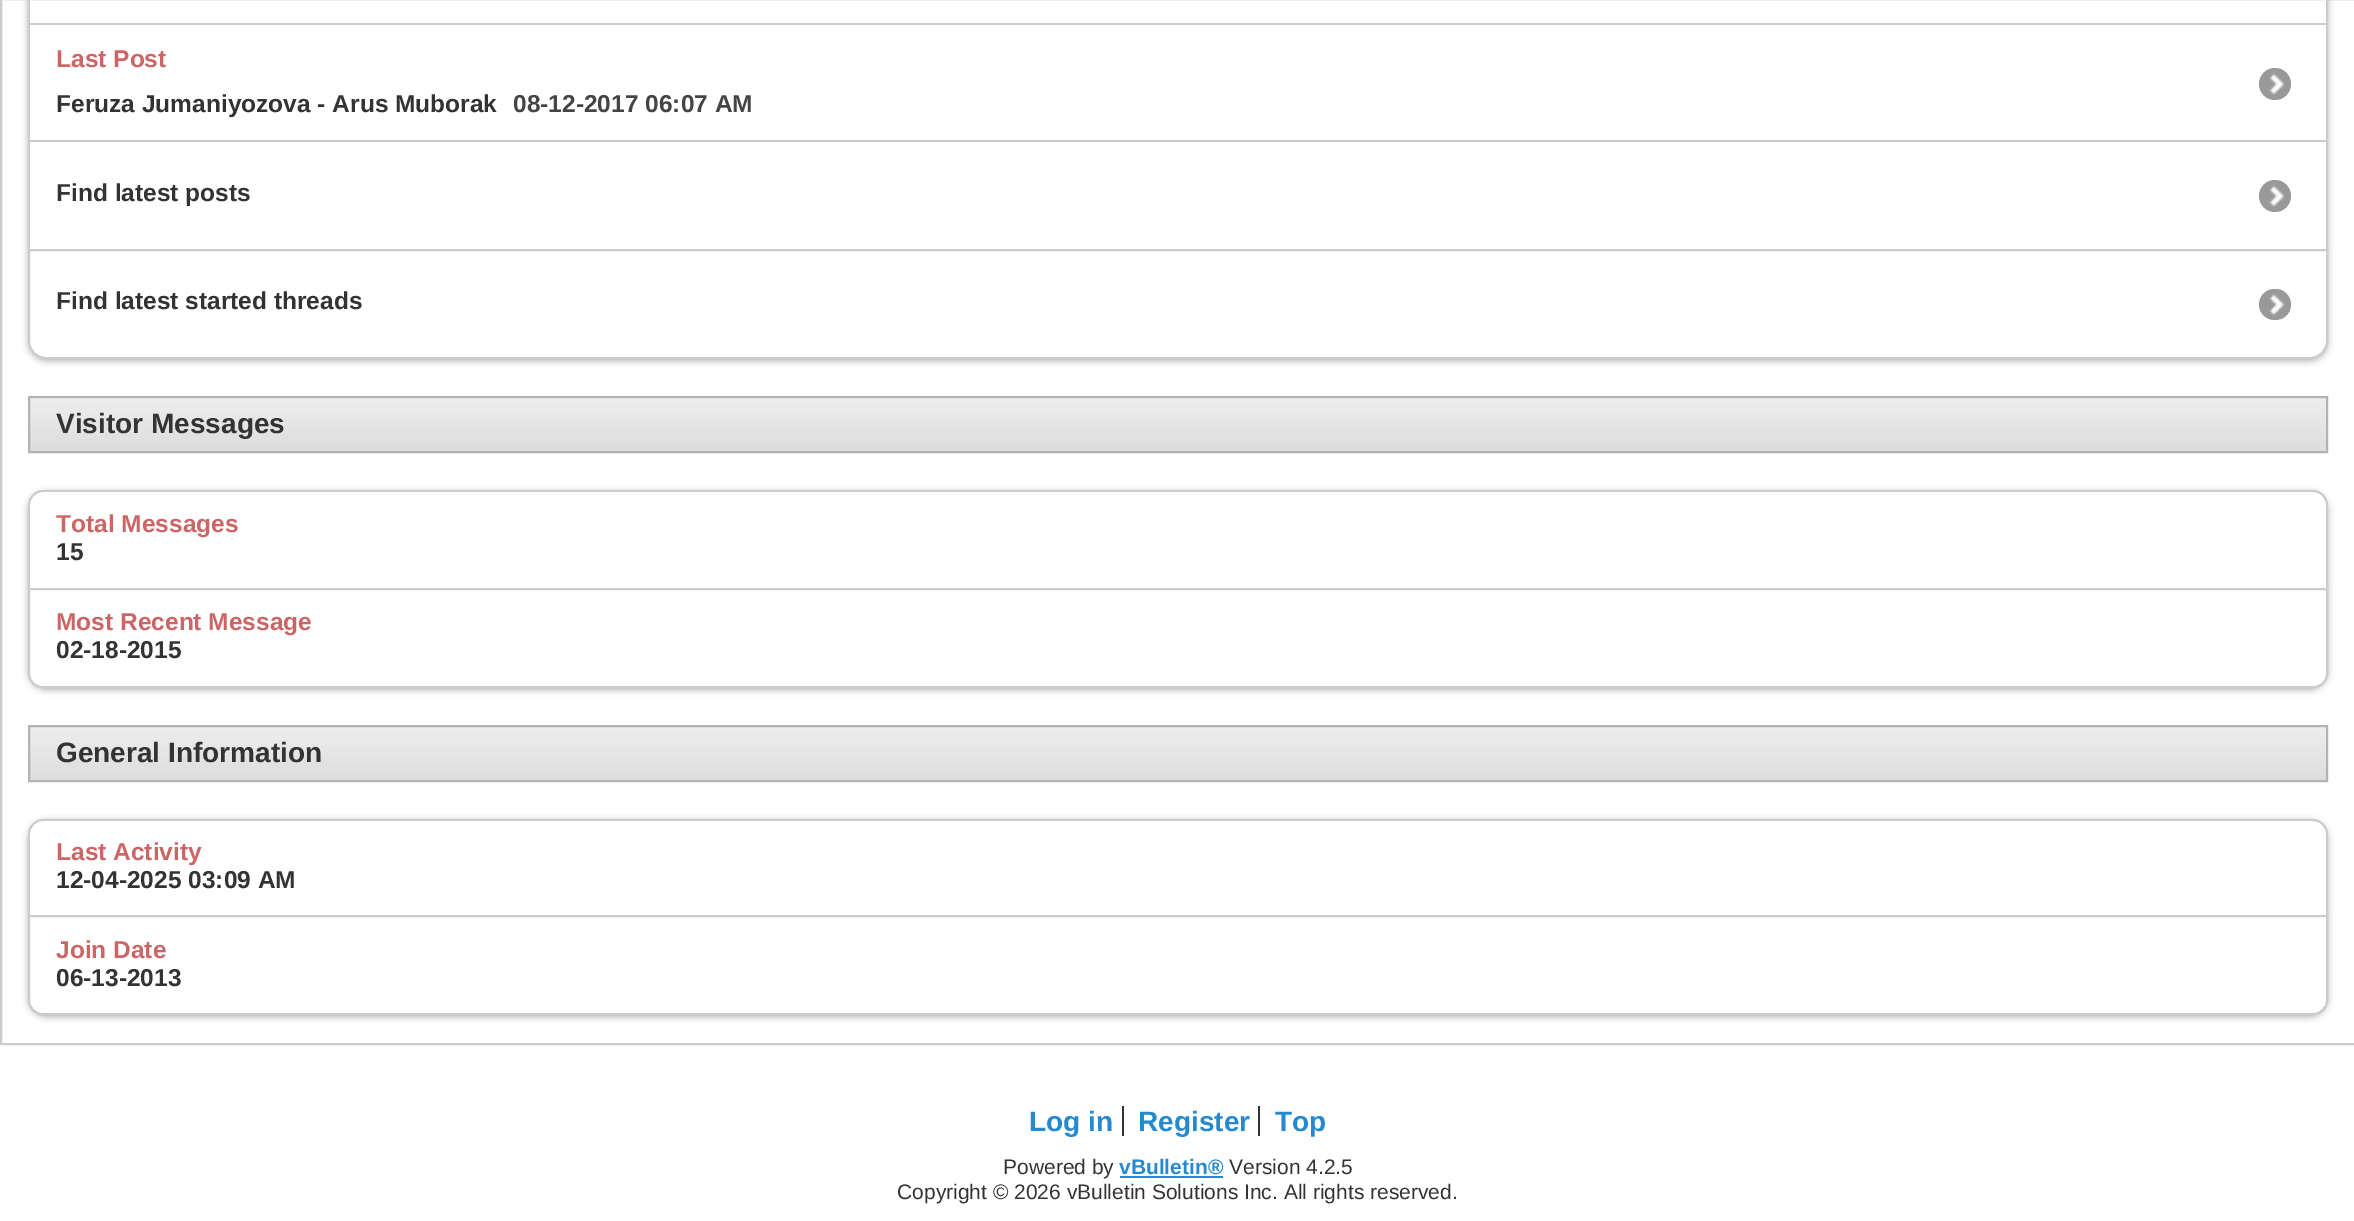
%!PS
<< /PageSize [2354 1221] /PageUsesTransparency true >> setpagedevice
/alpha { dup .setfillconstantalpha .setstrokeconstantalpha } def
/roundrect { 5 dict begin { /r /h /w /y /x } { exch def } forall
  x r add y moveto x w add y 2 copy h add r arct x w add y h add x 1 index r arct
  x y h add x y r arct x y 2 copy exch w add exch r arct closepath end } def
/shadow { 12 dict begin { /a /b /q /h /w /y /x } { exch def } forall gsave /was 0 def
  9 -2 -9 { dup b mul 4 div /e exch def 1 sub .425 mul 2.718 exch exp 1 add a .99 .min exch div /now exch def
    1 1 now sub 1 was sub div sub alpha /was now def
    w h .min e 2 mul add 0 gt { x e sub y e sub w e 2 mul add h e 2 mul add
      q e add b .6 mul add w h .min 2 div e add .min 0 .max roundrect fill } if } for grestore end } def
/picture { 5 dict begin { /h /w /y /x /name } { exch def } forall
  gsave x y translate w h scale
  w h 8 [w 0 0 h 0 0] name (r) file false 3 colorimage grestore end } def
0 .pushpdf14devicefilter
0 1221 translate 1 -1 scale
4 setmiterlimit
1 setgray
0 0 2354 1221 rectfill
0.8 setgray
2 setlinewidth
1 -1 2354 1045 rectstroke
gsave
newpath 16 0 moveto 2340 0 lineto 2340 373 lineto 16 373 lineto closepath 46 -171 moveto 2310 -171 lineto 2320 -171 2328 -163 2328 -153 curveto 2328 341 lineto 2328 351 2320 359 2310 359 curveto 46 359 lineto 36 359 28 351 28 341 curveto 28 -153 lineto 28 -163 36 -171 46 -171 curveto closepath eoclip newpath
0 setgray
28 -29 2300 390 18 3.5 0.3 shadow
grestore
2326 0 2 23 rectfill
28 0 2 23 rectfill
28 23 2300 2 rectfill
2326 23 2 117 rectfill
28 23 2 117 rectfill
/LiberationSans-Bold [24.5 0 0 -24.5 0 0] selectfont
0.8 0.4 0.4 setrgbcolor
56 67 moveto (Last Post) show
0.2 setgray
56 112 moveto (Feruza Jumaniyozova - Arus Muborak) show
0.267 setgray
513 112 moveto (08-12-2017 06:07 AM) show
0.6 setgray
newpath 2275 84 16 0 360 arc closepath fill
(img1.rgb) 2269 73 16 22 picture
0.8 setgray
28 140 2300 2 rectfill
2326 140 2 109 rectfill
28 140 2 109 rectfill
0.2 setgray
56 201 moveto (Find latest posts) show
0.6 setgray
newpath 2275 196 16 0 360 arc closepath fill
(img1.rgb) 2269 185 16 22 picture
0.8 setgray
newpath 29 250 moveto 2327 250 lineto 2327 341 lineto 2327 350.5 2319.5 358 2310 358 curveto 46 358 lineto 36.5 358 29 350.5 29 341 curveto closepath stroke
0.2 setgray
56 309 moveto (Find latest started threads) show
0.6 setgray
2259 289 32 31 15.5 roundrect fill
(img2.rgb) 2269 294 16 22 picture
gsave newpath 30 398 moveto 2326 398 lineto 2326 451 lineto 30 451 lineto closepath clip newpath
<< /ShadingType 2 /ColorSpace /DeviceRGB /Coords [1178 397 1178 452] /Extend [true true] /Function << /FunctionType 2 /Domain [0 1] /C0 [0.933 0.933 0.933] /C1 [0.867 0.867 0.867] /N 1 >> >> shfill grestore
0.702 setgray
29 397 2298 55 rectstroke
/LiberationSans-Bold [28 0 0 -28 0 0] selectfont
0.2 setgray
56 433 moveto (Visitor Messages) show
gsave
newpath 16 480 moveto 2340 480 lineto 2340 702 lineto 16 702 lineto closepath 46 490 moveto 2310 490 lineto 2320 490 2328 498 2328 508 curveto 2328 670 lineto 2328 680 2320 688 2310 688 curveto 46 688 lineto 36 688 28 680 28 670 curveto 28 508 lineto 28 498 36 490 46 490 curveto closepath eoclip newpath
0 setgray
28 492 2300 198 18 3.5 0.3 shadow
grestore
0.8 setgray
newpath 43 490 moveto 2313 490 lineto 2321 490 2328 497 2328 505 curveto 2328 588 lineto 28 588 lineto 28 505 lineto 28 497 35 490 43 490 curveto closepath 43 492 moveto 2313 492 lineto 2320 492 2326 498 2326 505 curveto 2326 588 lineto 30 588 lineto 30 505 lineto 30 498 36 492 43 492 curveto closepath eofill
/LiberationSans-Bold [24.5 0 0 -24.5 0 0] selectfont
0.8 0.4 0.4 setrgbcolor
56 532 moveto (Total Messages) show
0.2 setgray
56 560 moveto (15) show
1 setgray
newpath 29 589 moveto 2327 589 lineto 2327 674 lineto 2327 681 2321 687 2314 687 curveto 42 687 lineto 35 687 29 681 29 674 curveto closepath gsave fill grestore
0.8 setgray
stroke
0.8 0.4 0.4 setrgbcolor
56 630 moveto (Most Recent Message) show
0.2 setgray
56 658 moveto (02-18-2015) show
gsave newpath 30 727 moveto 2326 727 lineto 2326 780 lineto 30 780 lineto closepath clip newpath
<< /ShadingType 2 /ColorSpace /DeviceRGB /Coords [1178 726 1178 781] /Extend [true true] /Function << /FunctionType 2 /Domain [0 1] /C0 [0.933 0.933 0.933] /C1 [0.867 0.867 0.867] /N 1 >> >> shfill grestore
0.702 setgray
29 726 2298 55 rectstroke
/LiberationSans-Bold [28 0 0 -28 0 0] selectfont
0.2 setgray
56 762 moveto (General Information) show
gsave
newpath 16 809 moveto 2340 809 lineto 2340 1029 lineto 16 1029 lineto closepath 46 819 moveto 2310 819 lineto 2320 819 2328 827 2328 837 curveto 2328 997 lineto 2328 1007 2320 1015 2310 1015 curveto 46 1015 lineto 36 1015 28 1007 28 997 curveto 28 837 lineto 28 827 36 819 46 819 curveto closepath eoclip newpath
0 setgray
28 821 2300 196 18 3.5 0.3 shadow
grestore
0.8 setgray
newpath 43 819 moveto 2313 819 lineto 2321 819 2328 826 2328 834 curveto 2328 915 lineto 28 915 lineto 28 834 lineto 28 826 35 819 43 819 curveto closepath 43 821 moveto 2313 821 lineto 2320 821 2326 827 2326 834 curveto 2326 915 lineto 30 915 lineto 30 834 lineto 30 827 36 821 43 821 curveto closepath eofill
/LiberationSans-Bold [24.5 0 0 -24.5 0 0] selectfont
0.8 0.4 0.4 setrgbcolor
56 860 moveto (Last Activity) show
0.2 setgray
56 888 moveto (12-04-2025 03:09 AM) show
0.8 setgray
newpath 29 916 moveto 2327 916 lineto 2327 1001 lineto 2327 1008 2321 1014 2314 1014 curveto 42 1014 lineto 35 1014 29 1008 29 1001 curveto closepath stroke
0.8 0.4 0.4 setrgbcolor
56 958 moveto (Join Date) show
0.2 setgray
56 986 moveto (06-13-2013) show
/LiberationSans-Bold [28 0 0 -28 0 0] selectfont
0.141 0.537 0.808 setrgbcolor
1029 1131 moveto (Log in) show
0.2 setgray
1122 1106 2 30 rectfill
0.141 0.537 0.808 setrgbcolor
1138 1131 moveto (Register) show
0.2 setgray
1258 1106 2 30 rectfill
0.141 0.537 0.808 setrgbcolor
1275 1131 moveto (Top) show
/LiberationSans-Regular [21 0 0 -21 0 0] selectfont
0.2 setgray
1003 1174 moveto (Powered by) show
/LiberationSans-Bold [21 0 0 -21 0 0] selectfont
0.141 0.537 0.808 setrgbcolor
1119 1174 moveto (vBulletin®) show
1120 1176 103 2 rectfill
/LiberationSans-Regular [21 0 0 -21 0 0] selectfont
0.2 setgray
1229 1174 moveto (Version 4.2.5) show
897 1199 moveto (Copyright © 2026 vBulletin Solutions Inc. All rights reserved.) show
.poppdf14devicefilter showpage
